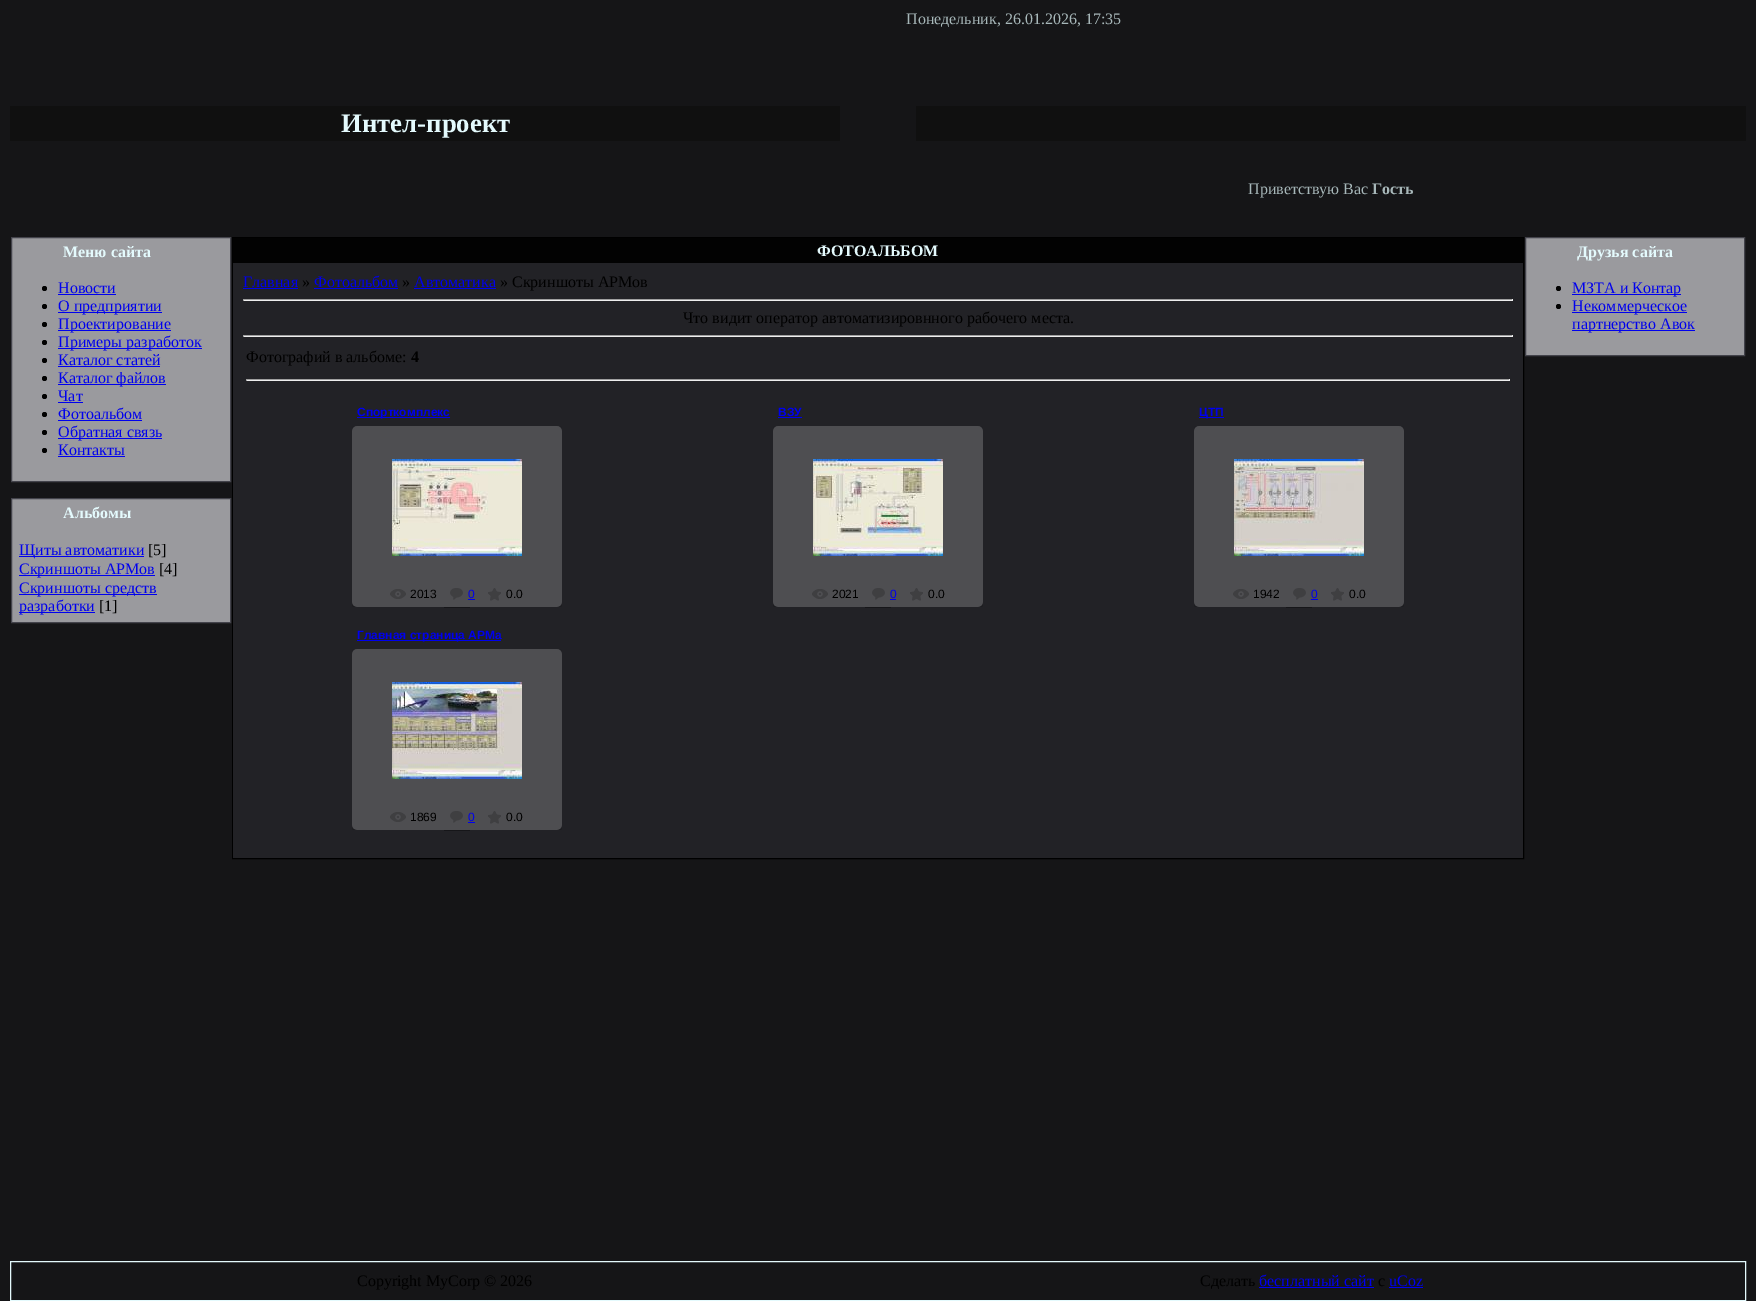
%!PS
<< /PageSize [1756 1301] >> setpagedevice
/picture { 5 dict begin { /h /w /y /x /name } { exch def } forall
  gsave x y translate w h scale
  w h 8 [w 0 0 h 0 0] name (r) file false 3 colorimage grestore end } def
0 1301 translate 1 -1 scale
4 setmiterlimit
0.082 0.082 0.09 setrgbcolor
0 0 1756 1301 rectfill
/LiberationSerif-Regular [16 0 0 -16 0 0] selectfont
0.655 0.718 0.725 setrgbcolor
906 24 moveto (Понедельник, 26.01.2026, 17:35) show
0.063 setgray
10 106 830 35 rectfill
/LiberationSerif-Bold [26.75 0 0 -26.75 0 0] selectfont
0.894 0.98 0.992 setrgbcolor
341 132 moveto (Интел-проект) show
0.063 setgray
916 106 830 35 rectfill
/LiberationSerif-Regular [16 0 0 -16 0 0] selectfont
0.655 0.718 0.725 setrgbcolor
1248 194 moveto (Приветствую Вас) show
/LiberationSerif-Bold [16 0 0 -16 0 0] selectfont
1372 194 moveto (Гость) show
0.604 0.604 0.62 setrgbcolor
newpath 11.5 237.5 moveto 230.5 237.5 lineto 230.5 481.5 lineto 11.5 481.5 lineto closepath gsave fill grestore
0.263 0.263 0.294 setrgbcolor
stroke
0.894 0.98 0.992 setrgbcolor
63 257 moveto (Меню сайта) show
0 setgray
newpath 44.5 288.5 2.5 0 360 arc closepath fill
/LiberationSerif-Regular [16 0 0 -16 0 0] selectfont
0 0 0.933 setrgbcolor
58 293 moveto (Новости) show
58 294 58 1 rectfill
0 setgray
newpath 44.5 306.5 2.5 0 360 arc closepath fill
0 0 0.933 setrgbcolor
58 312 104 1 rectfill
58 311 moveto (О предприятии) show
0 setgray
newpath 44.5 324.5 2.5 0 360 arc closepath fill
0 0 0.933 setrgbcolor
58 330 113 1 rectfill
58 329 moveto (Проектирование) show
0 setgray
newpath 44.5 342.5 2.5 0 360 arc closepath fill
0 0 0.933 setrgbcolor
58 348 144 1 rectfill
58 347 moveto (Примеры разработок) show
0 setgray
newpath 44.5 360.5 2.5 0 360 arc closepath fill
0 0 0.933 setrgbcolor
58 365 moveto (Каталог статей) show
58 366 102 1 rectfill
0 setgray
newpath 44.5 378.5 2.5 0 360 arc closepath fill
0 0 0.933 setrgbcolor
58 384 108 1 rectfill
58 383 moveto (Каталог файлов) show
0 setgray
newpath 44.5 396.5 2.5 0 360 arc closepath fill
0 0 0.933 setrgbcolor
58 401 moveto (Чат) show
58 402 25 1 rectfill
0 setgray
newpath 44.5 414.5 2.5 0 360 arc closepath fill
0 0 0.933 setrgbcolor
58 419 moveto (Фотоальбом) show
58 420 84 1 rectfill
0 setgray
newpath 44.5 432.5 2.5 0 360 arc closepath fill
0 0 0.933 setrgbcolor
58 438 104 1 rectfill
58 437 moveto (Обратная связь) show
0 setgray
newpath 44.5 450.5 2.5 0 360 arc closepath fill
0 0 0.933 setrgbcolor
58 455 moveto (Контакты) show
58 456 67 1 rectfill
0.604 0.604 0.62 setrgbcolor
newpath 11.5 498.5 moveto 230.5 498.5 lineto 230.5 622.5 lineto 11.5 622.5 lineto closepath gsave fill grestore
0.263 0.263 0.294 setrgbcolor
stroke
/LiberationSerif-Bold [16 0 0 -16 0 0] selectfont
0.894 0.98 0.992 setrgbcolor
63 518 moveto (Альбомы) show
0 0 0.933 setrgbcolor
19 556 125 1 rectfill
/LiberationSerif-Regular [16 0 0 -16 0 0] selectfont
19 555 moveto (Щиты автоматики) show
0 setgray
148 555 moveto ([5]) show
0 0 0.933 setrgbcolor
19 575 136 1 rectfill
19 574 moveto (Скриншоты АРМов) show
0 setgray
159 574 moveto ([4]) show
0 0 0.933 setrgbcolor
19 594 138 1 rectfill
19 593 moveto (Скриншоты средств) show
19 612 76 1 rectfill
19 611 moveto (разработки) show
0 setgray
99 611 moveto ([1]) show
232.5 237.5 1291 621 rectstroke
0.008 setgray
233 238 1290 25 rectfill
/LiberationSerif-Bold [16 0 0 -16 0 0] selectfont
0.894 0.98 0.992 setrgbcolor
817 256 moveto (ФОТОАЛЬБОМ) show
0.133 0.133 0.149 setrgbcolor
233 263 1290 595 rectfill
/LiberationSerif-Regular [16 0 0 -16 0 0] selectfont
0 0 0.933 setrgbcolor
243 287 moveto (Главная) show
243 288 55 1 rectfill
0 setgray
302 287 moveto (») show
0 0 0.933 setrgbcolor
314 287 moveto (Фотоальбом) show
314 288 84 1 rectfill
0 setgray
402 287 moveto (») show
0 0 0.933 setrgbcolor
414 287 moveto (Автоматика) show
414 288 82 1 rectfill
0 setgray
500 287 moveto (» Скриншоты АРМов) show
0.624 setgray
243 299 1270 1 rectfill
0.933 setgray
1512 299 1 2 rectfill
243 300 1270 1 rectfill
0.624 setgray
243 299 1 2 rectfill
0 setgray
683 323 moveto (Что видит оператор автоматизировнного рабочего места.) show
0.624 setgray
243 335 1270 1 rectfill
0.933 setgray
1512 335 1 2 rectfill
243 336 1270 1 rectfill
0.624 setgray
243 335 1 2 rectfill
0 setgray
246 362 moveto (Фотографий в альбоме:) show
/LiberationSerif-Bold [16 0 0 -16 0 0] selectfont
411 362 moveto (4) show
0.624 setgray
246 379 1264 1 rectfill
0.933 setgray
1509 379 1 2 rectfill
246 380 1264 1 rectfill
0.624 setgray
246 379 1 2 rectfill
0 0 0.933 setrgbcolor
357 417 93 1 rectfill
/LiberationSans-Bold [12 0 0 -12 0 0] selectfont
357 416 moveto (Спорткомплекс) show
(img1.rgb) 352 426 210 181 picture
(img2.rgb) 392 459 130 97 picture
(img3.rgb) 390 589 16 10 picture
/LiberationSans-Regular [12 0 0 -12 0 0] selectfont
0 setgray
410 598 moveto (2013) show
(img4.rgb) 450 588 13 12 picture
0 0 0.933 setrgbcolor
468 598 moveto (0) show
468 599 7 1 rectfill
(img5.rgb) 488 588 13 13 picture
0 setgray
506 598 moveto (0.0) show
0.086 0.086 0.098 setrgbcolor
444 607 26 1 rectfill
/LiberationSans-Bold [12 0 0 -12 0 0] selectfont
0 0 0.933 setrgbcolor
778 416 moveto (ВЗУ) show
778 417 24 1 rectfill
(img1.rgb) 773 426 210 181 picture
(img6.rgb) 813 459 130 97 picture
/LiberationSans-Regular [12 0 0 -12 0 0] selectfont
0.855 0.741 0.718 setrgbcolor
874 527 moveto (Kass) show
(img3.rgb) 812 589 16 10 picture
0 setgray
832 598 moveto (2021) show
(img4.rgb) 872 588 13 12 picture
0 0 0.933 setrgbcolor
890 598 moveto (0) show
890 599 6 1 rectfill
(img5.rgb) 910 588 13 13 picture
0 setgray
928 598 moveto (0.0) show
0.086 0.086 0.098 setrgbcolor
865 607 26 1 rectfill
0 0 0.933 setrgbcolor
1199 417 25 1 rectfill
/LiberationSans-Bold [12 0 0 -12 0 0] selectfont
1199 416 moveto (ЦТП) show
(img1.rgb) 1194 426 210 181 picture
(img7.rgb) 1234 459 130 97 picture
(img3.rgb) 1233 589 16 10 picture
/LiberationSans-Regular [12 0 0 -12 0 0] selectfont
0 setgray
1253 598 moveto (1942) show
(img4.rgb) 1293 588 13 12 picture
0 0 0.933 setrgbcolor
1311 598 moveto (0) show
1311 599 7 1 rectfill
(img5.rgb) 1331 588 13 13 picture
0 setgray
1349 598 moveto (0.0) show
0.086 0.086 0.098 setrgbcolor
1286 607 26 1 rectfill
0 0 0.933 setrgbcolor
357 640 144 1 rectfill
/LiberationSans-Bold [12 0 0 -12 0 0] selectfont
357 639 moveto (Главная страница АРМа) show
(img1.rgb) 352 649 210 181 picture
(img8.rgb) 392 682 130 97 picture
0.604 0.584 0.694 setrgbcolor
457 720 moveto (.) show
/LiberationSans-Regular [12 0 0 -12 0 0] selectfont
0.682 0.667 0.596 setrgbcolor
452 750 moveto (Kass) show
(img3.rgb) 390 812 16 10 picture
0 setgray
410 821 moveto (1869) show
(img4.rgb) 450 811 13 12 picture
0 0 0.933 setrgbcolor
468 821 moveto (0) show
468 822 7 1 rectfill
(img5.rgb) 488 811 13 13 picture
0 setgray
506 821 moveto (0.0) show
0.086 0.086 0.098 setrgbcolor
444 830 26 1 rectfill
0.604 0.604 0.62 setrgbcolor
newpath 1525.5 237.5 moveto 1744.5 237.5 lineto 1744.5 355.5 lineto 1525.5 355.5 lineto closepath gsave fill grestore
0.263 0.263 0.294 setrgbcolor
stroke
/LiberationSerif-Bold [16 0 0 -16 0 0] selectfont
0.894 0.98 0.992 setrgbcolor
1577 257 moveto (Друзья сайта) show
0 setgray
newpath 1558.5 288.5 2.5 0 360 arc closepath fill
0 0 0.933 setrgbcolor
1572 294 109 1 rectfill
/LiberationSerif-Regular [16 0 0 -16 0 0] selectfont
1572 293 moveto (МЗТА и Контар) show
0 setgray
newpath 1558.5 306.5 2.5 0 360 arc closepath fill
0 0 0.933 setrgbcolor
1572 312 115 1 rectfill
1572 311 moveto (Некоммерческое) show
1572 330 123 1 rectfill
1572 329 moveto (партнерство Авок) show
0.894 0.98 0.992 setrgbcolor
10.5 1261.5 1735 39 rectstroke
0 setgray
357 1286 moveto (Copyright MyCorp © 2026) show
1200 1286 moveto (Сделать) show
0 0 0.933 setrgbcolor
1259 1287 115 1 rectfill
1259 1286 moveto (бесплатный сайт) show
0 setgray
1378 1286 moveto (с) show
0 0 0.933 setrgbcolor
1389 1286 moveto (uCoz) show
1389 1287 34 1 rectfill
showpage
